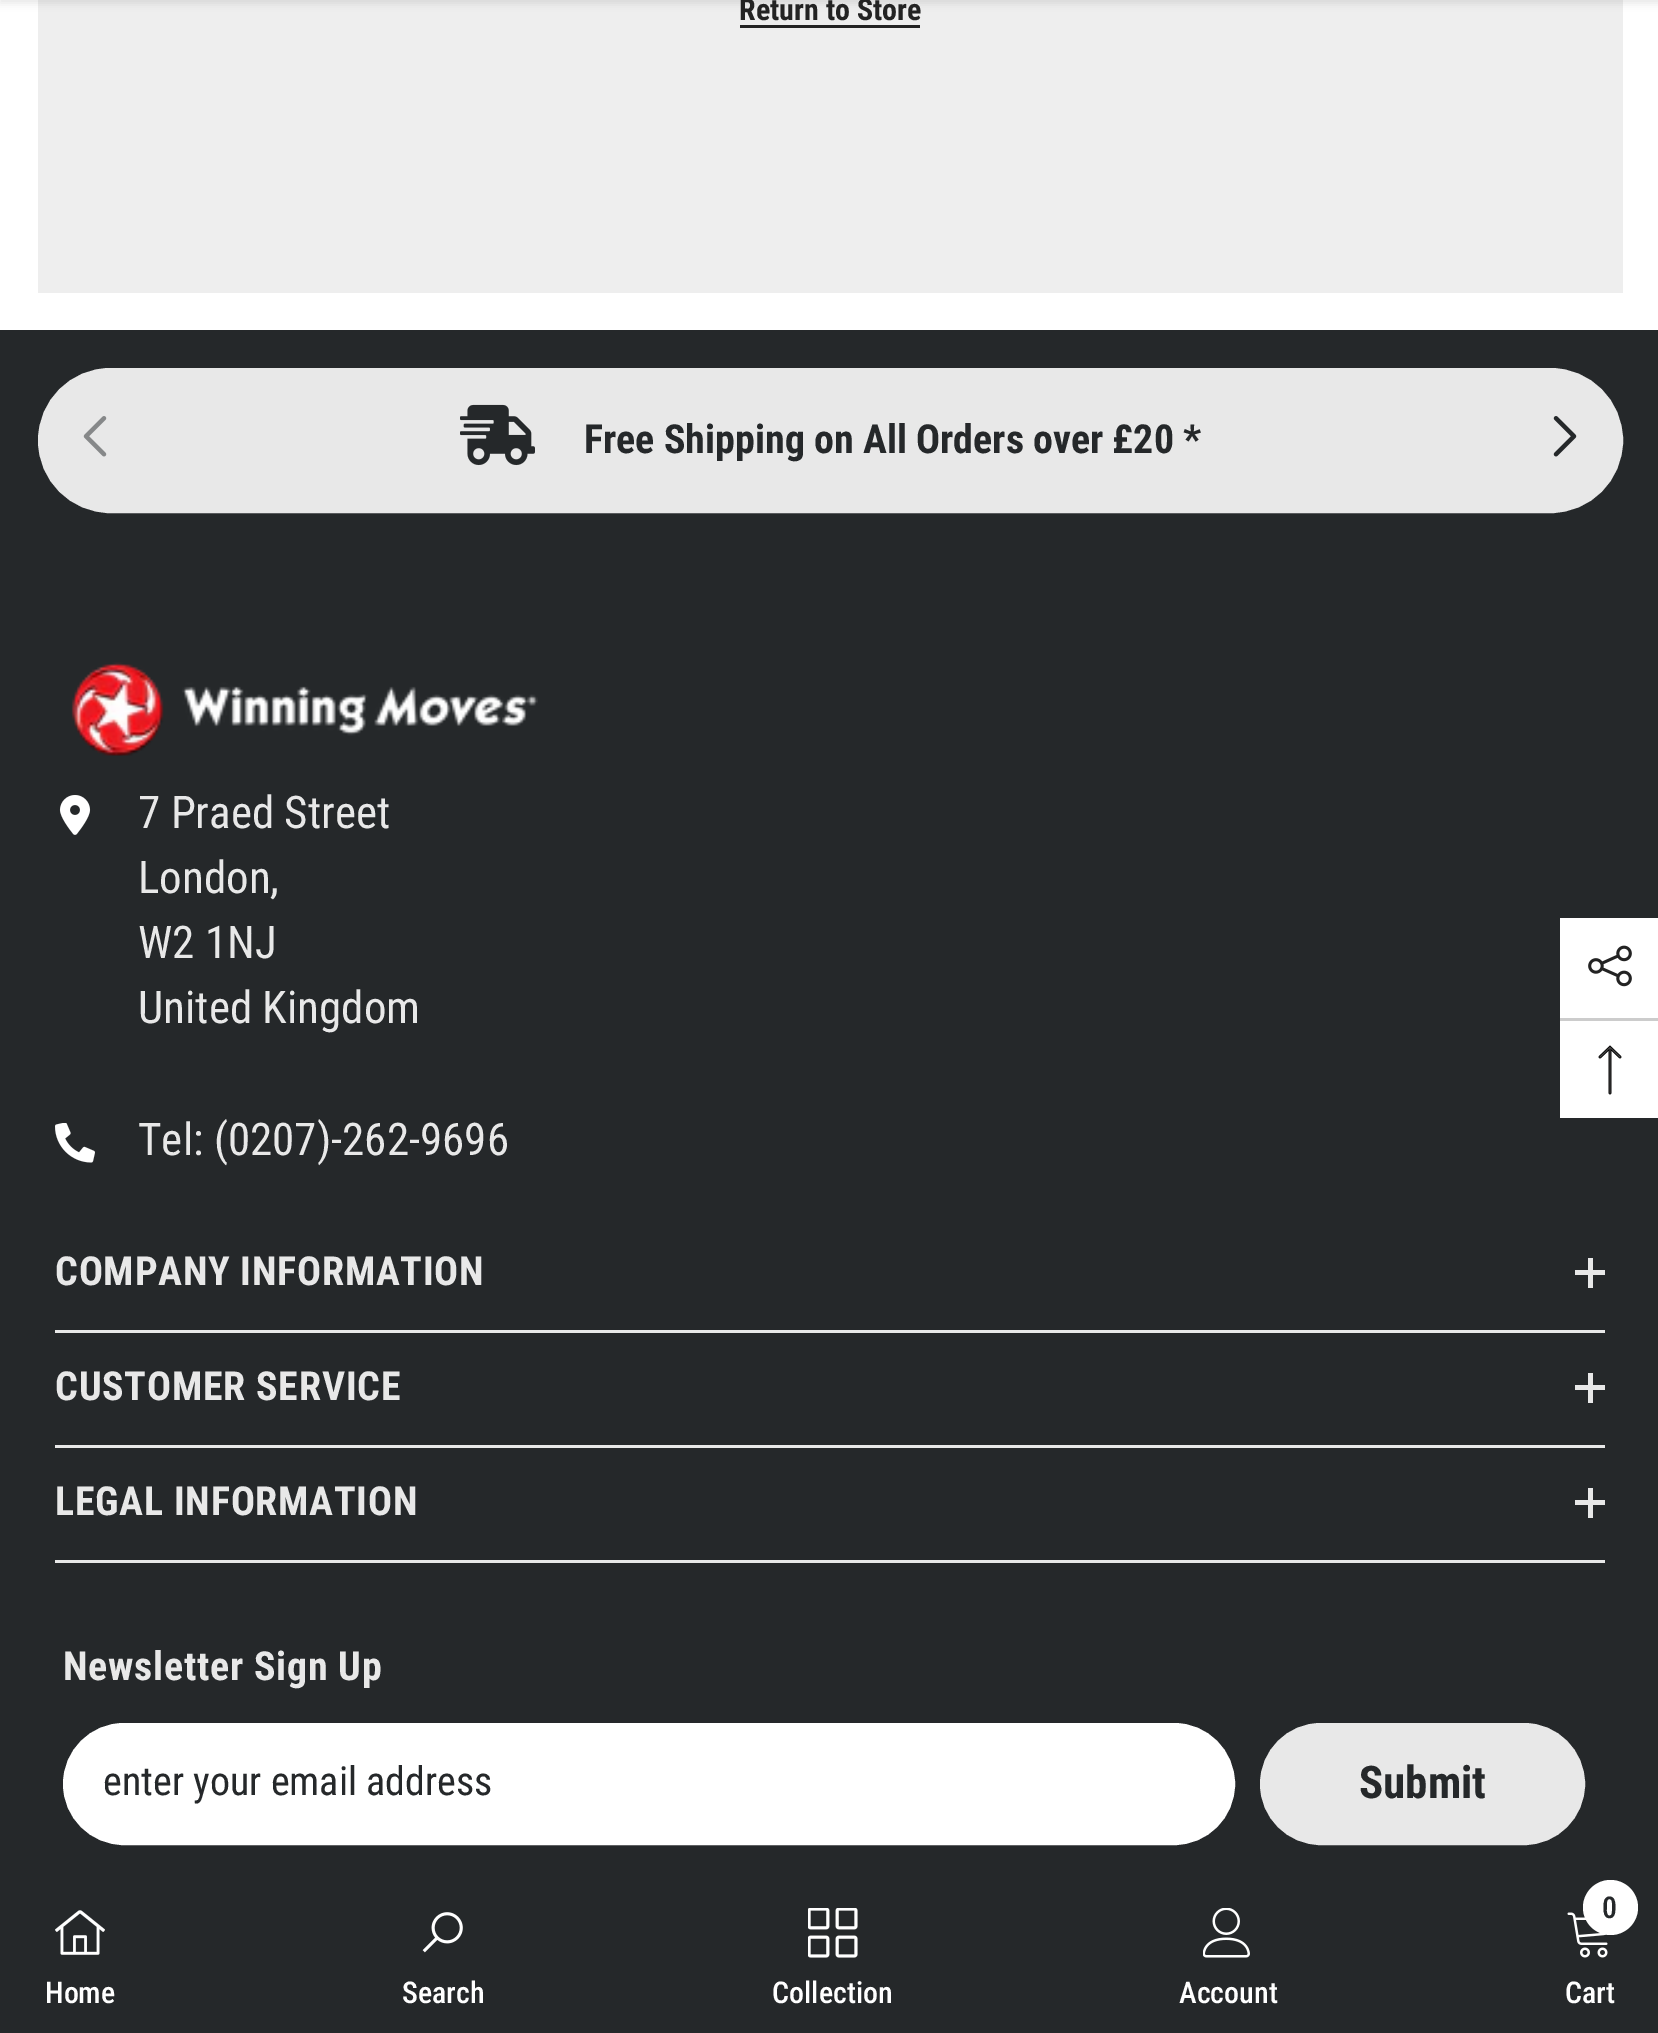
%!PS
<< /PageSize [1658 2033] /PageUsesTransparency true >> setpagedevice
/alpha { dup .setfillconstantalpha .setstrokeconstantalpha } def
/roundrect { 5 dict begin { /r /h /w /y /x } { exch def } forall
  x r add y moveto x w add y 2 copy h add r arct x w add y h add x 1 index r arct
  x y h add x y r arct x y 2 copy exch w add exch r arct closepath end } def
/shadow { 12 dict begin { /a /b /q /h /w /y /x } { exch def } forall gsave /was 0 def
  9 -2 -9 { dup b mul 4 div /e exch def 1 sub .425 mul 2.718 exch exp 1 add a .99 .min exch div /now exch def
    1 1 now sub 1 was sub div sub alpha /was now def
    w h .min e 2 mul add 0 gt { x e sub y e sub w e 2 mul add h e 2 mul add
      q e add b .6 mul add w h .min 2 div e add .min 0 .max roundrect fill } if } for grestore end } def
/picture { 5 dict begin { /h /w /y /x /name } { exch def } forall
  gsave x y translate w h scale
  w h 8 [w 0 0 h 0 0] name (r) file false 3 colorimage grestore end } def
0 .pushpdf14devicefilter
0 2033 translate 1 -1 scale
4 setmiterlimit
0.145 0.157 0.165 setrgbcolor
0 0 1658 2033 rectfill
1 setgray
0 0 1658 330 rectfill
0.933 setgray
38 0 1585 293 rectfill
0 setgray
0 -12 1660 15 0 4 0.1 shadow
/RobotoCondensed-Bold [30 0 0 -30 0 0] selectfont
0.137 setgray
739 20 moveto (Return to Store) show
740 25 180 3 rectfill
0.91 setgray
39.5 369.5 1582 142 71 roundrect gsave fill grestore
3 setlinewidth
stroke
(img1.rgb) 83 416 24 41 picture
(img2.rgb) 1553 416 24 41 picture
(img3.rgb) 460 404 75 62 picture
/RobotoCondensed-Bold [40 0 0 -40 0 0] selectfont
0.145 0.157 0.165 setrgbcolor
584 453 moveto (Free Shipping on All Orders over £20 *) show
(img4.rgb) 71 662 467 94 picture
(img5.rgb) 59 795 32 40 picture
/RobotoCondensed-Regular [45 0 0 -45 0 0] selectfont
0.91 setgray
138 828 moveto (7 Praed Street) show
138 893 moveto (London,) show
138 958 moveto (W2 1NJ) show
138 1023 moveto (United Kingdom) show
(img6.rgb) 55 1123 40 40 picture
138 1155 moveto (Tel: \(0207\)-262-9696) show
55 1330 1550 3 rectfill
/RobotoCondensed-Bold [40 0 0 -40 0 0] selectfont
55 1285 moveto 0.75 0 (COMPANY INFORMATION) ashow
1588 1258 5 30 rectfill
1575 1270 30 5 rectfill
55 1445 1550 3 rectfill
55 1400 moveto 0.75 0 (CUSTOMER SERVICE) ashow
1588 1373 5 30 rectfill
1575 1385 30 5 rectfill
55 1560 1550 3 rectfill
55 1515 moveto 0.75 0 (LEGAL INFORMATION) ashow
1588 1488 5 30 rectfill
1575 1500 30 5 rectfill
63 1680 moveto 0.75 0 (Newsletter Sign Up) ashow
1 setgray
64.5 1724.5 1169 119 59.5 roundrect gsave fill grestore
stroke
/RobotoCondensed-Regular [40 0 0 -40 0 0] selectfont
0.145 0.157 0.165 setrgbcolor
103 1795 moveto (enter your email address) show
0.91 setgray
1261.5 1724.5 322 119 59.5 roundrect gsave fill grestore
stroke
/RobotoCondensed-Bold [45 0 0 -45 0 0] selectfont
0.145 0.157 0.165 setrgbcolor
1359 1798 moveto (Submit) show
(img7.rgb) 55 1910 50 45 picture
/RobotoCondensed-Medium [30 0 0 -30 0 0] selectfont
1 setgray
45 2003 moveto (Home) show
(img8.rgb) 422 1912 41 41 picture
402 2003 moveto (Search) show
(img9.rgb) 808 1908 50 50 picture
772 2003 moveto (Collection) show
(img10.rgb) 1203 1908 47 50 picture
1179 2003 moveto (Account) show
(img11.rgb) 1567 1912 41 46 picture
newpath 1610.5 1907.5 27.5 0 360 arc closepath fill
0.145 0.157 0.165 setrgbcolor
1602 1918 moveto (0) show
1 setgray
1565 2003 moveto (Cart) show
1560 918 98 200 rectfill
(img12.rgb) 1588 945 44 42 picture
0.8 setgray
1560 1018 98 3 rectfill
(img13.rgb) 1598 1045 24 50 picture
.poppdf14devicefilter showpage
